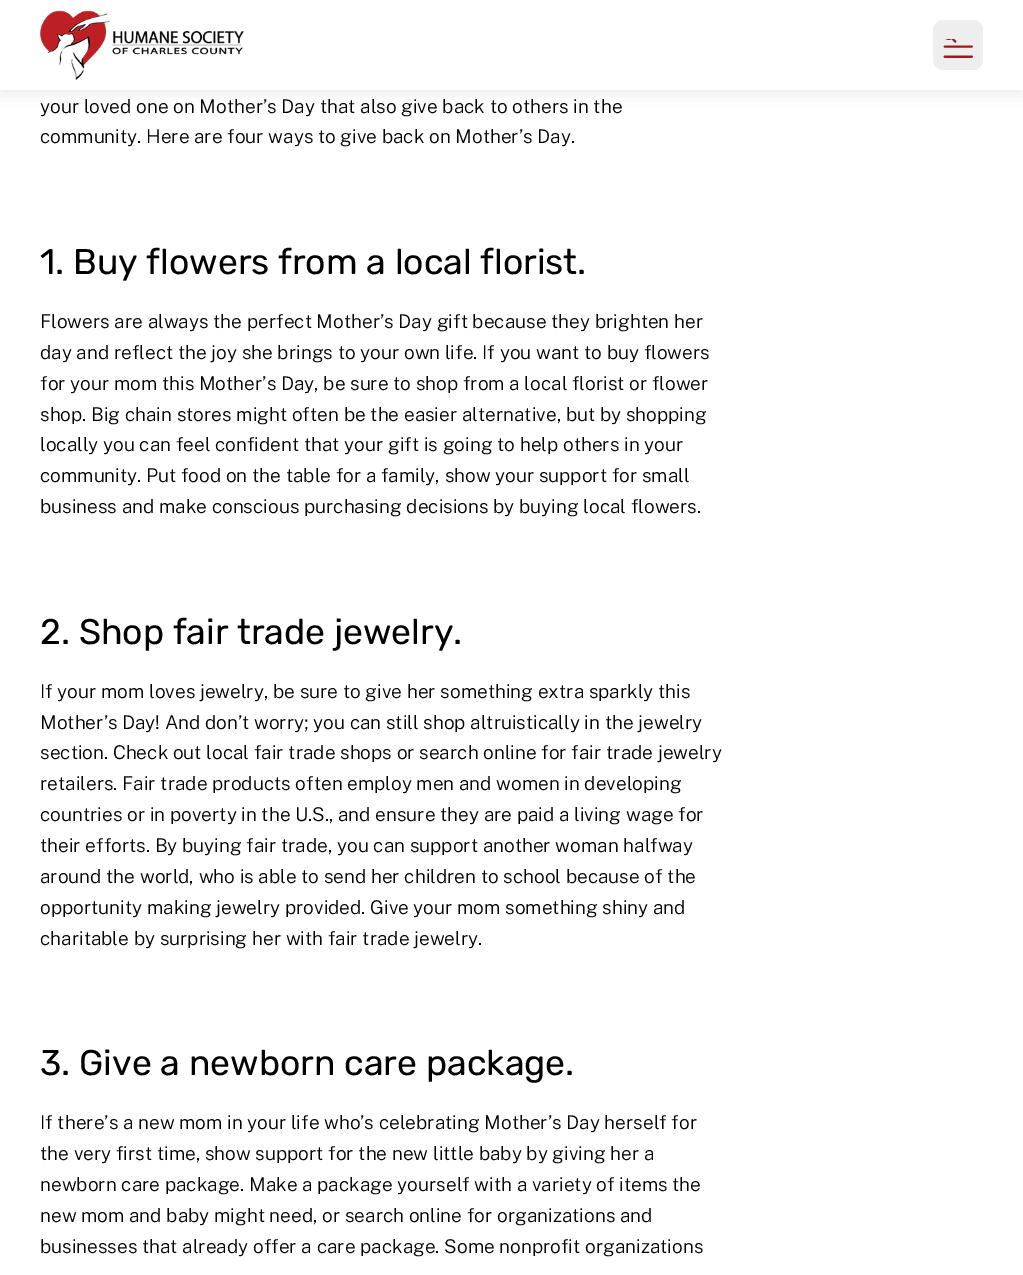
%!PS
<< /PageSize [1023 1275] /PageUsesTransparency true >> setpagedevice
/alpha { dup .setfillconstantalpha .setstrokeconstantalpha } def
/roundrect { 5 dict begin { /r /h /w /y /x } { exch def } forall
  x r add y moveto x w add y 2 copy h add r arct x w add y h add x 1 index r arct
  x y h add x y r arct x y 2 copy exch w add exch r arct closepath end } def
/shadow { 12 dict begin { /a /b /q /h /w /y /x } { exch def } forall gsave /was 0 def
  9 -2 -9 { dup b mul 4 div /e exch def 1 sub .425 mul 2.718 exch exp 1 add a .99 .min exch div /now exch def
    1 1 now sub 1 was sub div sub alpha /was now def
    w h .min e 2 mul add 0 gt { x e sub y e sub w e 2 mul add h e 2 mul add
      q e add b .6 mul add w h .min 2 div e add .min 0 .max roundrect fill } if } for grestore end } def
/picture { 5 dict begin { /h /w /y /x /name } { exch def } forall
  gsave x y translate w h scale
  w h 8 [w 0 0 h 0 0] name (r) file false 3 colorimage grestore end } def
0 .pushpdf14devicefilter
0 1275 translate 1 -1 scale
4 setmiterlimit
1 setgray
0 0 1023 1275 rectfill
0.459 setgray
0 0 1023 90 0 10 0.2 shadow
1 setgray
0 0 1023 90 rectfill
(img1.rgb) 40 10 204 70 picture
0.933 setgray
933 20 50 50 10 roundrect fill
(img2.rgb) 943 39 30 19 picture
/PublicSans-Light [19 0 0 -19 0 0] selectfont
0 setgray
40 113 moveto (your loved one on Mother’s Day that also give back to others in the) show
40 143 moveto (community. Here are four ways to give back on Mother’s Day.) show
/Rubik-Regular [35.6 0 0 -35.6 0 0] selectfont
40 274 moveto (1. Buy flowers from a local florist.) show
/PublicSans-Light [19 0 0 -19 0 0] selectfont
40 328 moveto (Flowers are always the perfect Mother’s Day gift because they brighten her) show
40 359 moveto (day and reflect the joy she brings to your own life. If you want to buy flowers) show
40 390 moveto (for your mom this Mother’s Day, be sure to shop from a local florist or flower) show
40 421 moveto (shop. Big chain stores might often be the easier alternative, but by shopping) show
40 451 moveto (locally you can feel confident that your gift is going to help others in your) show
40 482 moveto (community. Put food on the table for a family, show your support for small) show
40 513 moveto (business and make conscious purchasing decisions by buying local flowers.) show
/Rubik-Regular [35.6 0 0 -35.6 0 0] selectfont
40 644 moveto (2. Shop fair trade jewelry.) show
/PublicSans-Light [19 0 0 -19 0 0] selectfont
40 698 moveto (If your mom loves jewelry, be sure to give her something extra sparkly this) show
40 729 moveto (Mother’s Day! And don’t worry; you can still shop altruistically in the jewelry) show
40 759 moveto (section. Check out local fair trade shops or search online for fair trade jewelry) show
40 790 moveto (retailers. Fair trade products often employ men and women in developing) show
40 821 moveto (countries or in poverty in the U.S., and ensure they are paid a living wage for) show
40 852 moveto (their efforts. By buying fair trade, you can support another woman halfway) show
40 883 moveto (around the world, who is able to send her children to school because of the) show
40 914 moveto (opportunity making jewelry provided. Give your mom something shiny and) show
40 945 moveto (charitable by surprising her with fair trade jewelry.) show
/Rubik-Regular [35.6 0 0 -35.6 0 0] selectfont
40 1075 moveto (3. Give a newborn care package.) show
/PublicSans-Light [19 0 0 -19 0 0] selectfont
40 1129 moveto (If there’s a new mom in your life who’s celebrating Mother’s Day herself for) show
40 1160 moveto (the very first time, show support for the new little baby by giving her a) show
40 1191 moveto (newborn care package. Make a package yourself with a variety of items the) show
40 1222 moveto (new mom and baby might need, or search online for organizations and) show
40 1253 moveto (businesses that already offer a care package. Some nonprofit organizations) show
.poppdf14devicefilter showpage
